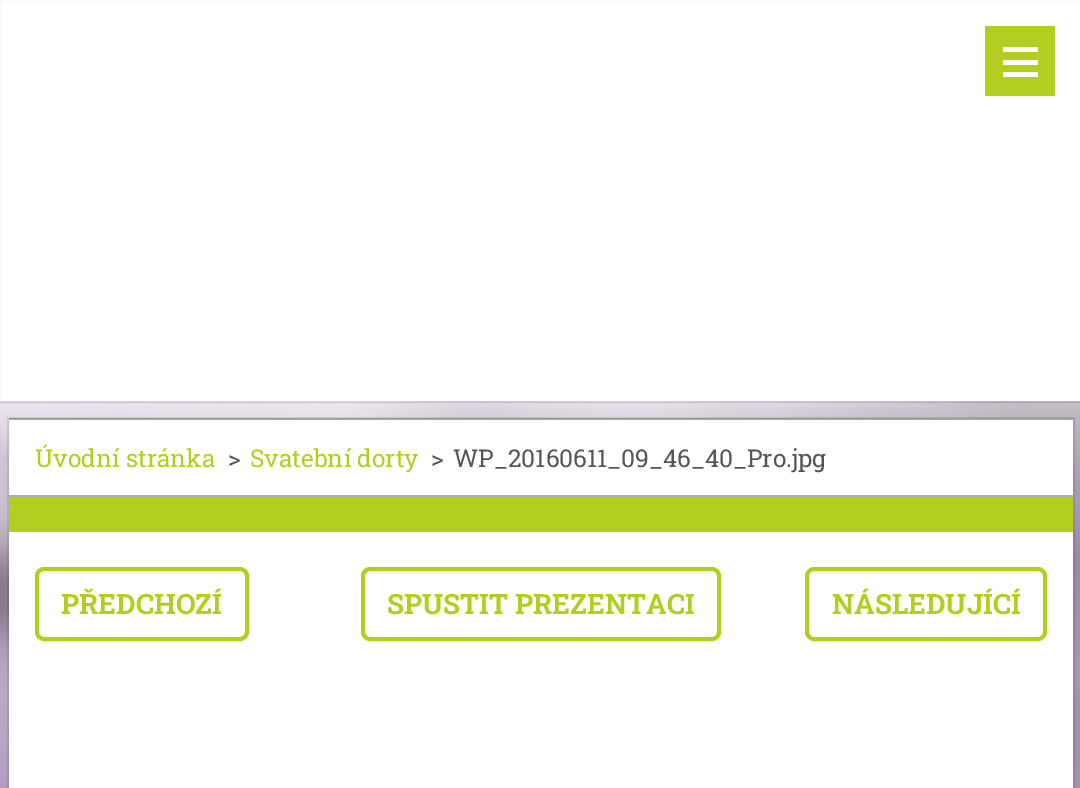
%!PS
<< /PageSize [1080 788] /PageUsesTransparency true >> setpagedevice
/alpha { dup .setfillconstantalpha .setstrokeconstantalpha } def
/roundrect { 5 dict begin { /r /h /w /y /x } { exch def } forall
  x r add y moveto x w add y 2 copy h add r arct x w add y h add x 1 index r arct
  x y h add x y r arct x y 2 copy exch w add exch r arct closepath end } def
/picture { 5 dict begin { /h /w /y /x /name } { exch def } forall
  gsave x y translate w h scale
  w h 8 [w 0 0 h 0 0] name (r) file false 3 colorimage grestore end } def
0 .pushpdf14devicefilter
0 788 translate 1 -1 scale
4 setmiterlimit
1 setgray
0 0 1080 788 rectfill
(img1.rgb) 0 401 1080 387 picture
0.1 alpha
0 setgray
2 setlinewidth
-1 -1 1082 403 rectstroke
1 alpha
0.702 0.808 0.125 setrgbcolor
985 26 70 70 rectfill
1 setgray
1003 47 35 5 rectfill
1003 60 35 5 rectfill
1003 72 35 5 rectfill
9 420 1064 75 rectfill
0.675 setgray
9 418 1064 2 rectfill
0.1 alpha
0 setgray
8 418 1066 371 rectstroke
/RobotoSlab-Regular [24.5 0 0 -24.5 0 0] selectfont
1 alpha
0.702 0.808 0.125 setrgbcolor
35 467 moveto (Úvodní stránka) show
0.333 setgray
228 467 moveto (>) show
0.702 0.808 0.125 setrgbcolor
250 467 moveto (Svatební dorty) show
0.333 setgray
431 467 moveto (>) show
453 467 moveto (WP_20160611_09_46_40_Pro.jpg) show
0.675 setgray
9 495 1064 2 rectfill
0.702 0.808 0.125 setrgbcolor
9 497 1064 35 rectfill
1 setgray
9 532 1064 256 rectfill
0.702 0.808 0.125 setrgbcolor
4 setlinewidth
37 569 210 70 7 roundrect stroke
/RobotoSlab-Bold [28 0 0 -28 0 0] selectfont
61 614 moveto (PŘEDCHOZÍ) show
363 569 356 70 7 roundrect stroke
387 614 moveto (SPUSTIT PREZENTACI) show
807 569 238 70 7 roundrect stroke
832 614 moveto (NÁSLEDUJÍCÍ) show
.poppdf14devicefilter showpage
